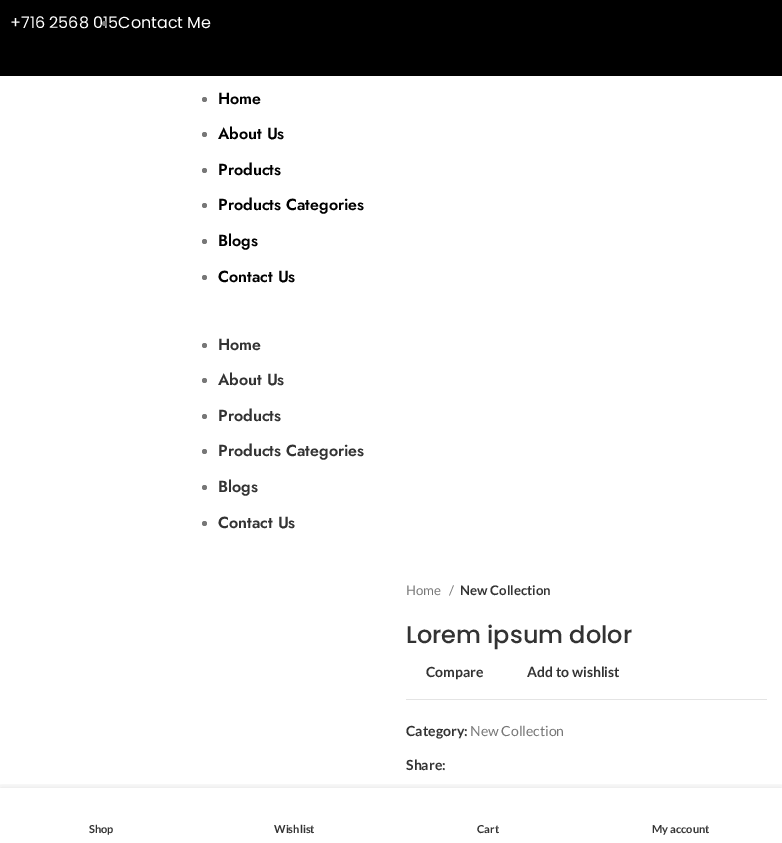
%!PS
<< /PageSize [782 843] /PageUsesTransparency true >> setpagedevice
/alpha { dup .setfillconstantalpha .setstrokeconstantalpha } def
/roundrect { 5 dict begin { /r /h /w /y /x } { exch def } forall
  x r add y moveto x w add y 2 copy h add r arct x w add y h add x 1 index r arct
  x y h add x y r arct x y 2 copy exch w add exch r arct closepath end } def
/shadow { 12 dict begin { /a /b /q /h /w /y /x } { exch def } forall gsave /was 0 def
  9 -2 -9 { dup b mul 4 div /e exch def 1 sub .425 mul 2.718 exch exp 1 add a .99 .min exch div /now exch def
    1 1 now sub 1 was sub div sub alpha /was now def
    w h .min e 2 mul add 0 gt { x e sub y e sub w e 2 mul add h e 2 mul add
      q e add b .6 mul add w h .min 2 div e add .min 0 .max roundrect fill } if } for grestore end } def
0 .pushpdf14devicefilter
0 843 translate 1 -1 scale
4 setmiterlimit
1 setgray
0 0 782 843 rectfill
0 setgray
0 0 782 76 rectfill
/Poppins-Regular [16 0 0 -16 0 0] selectfont
1 setgray
10 28 moveto (+716 2568 015Contact Me) show
0.467 setgray
newpath 104.5 23.5 2.5 0 360 arc closepath fill
newpath 204.5 99.5 2.5 0 360 arc closepath fill
/Jost-SemiBold [16 0 0 -16 0 0] selectfont
0 setgray
218 104 moveto (Home) show
0.467 setgray
newpath 204.5 134.5 2.5 0 360 arc closepath fill
0 setgray
218 139 moveto (About Us) show
0.467 setgray
newpath 204.5 170.5 2.5 0 360 arc closepath fill
0 setgray
218 175 moveto (Products) show
0.467 setgray
newpath 204.5 205.5 2.5 0 360 arc closepath fill
0 setgray
218 210 moveto (Products Categories) show
0.467 setgray
newpath 204.5 241.5 2.5 0 360 arc closepath fill
0 setgray
218 246 moveto (Blogs) show
0.467 setgray
newpath 204.5 277.5 2.5 0 360 arc closepath fill
0 setgray
218 282 moveto (Contact Us) show
0.467 setgray
newpath 204.5 345.5 2.5 0 360 arc closepath fill
0.2 setgray
218 350 moveto (Home) show
0.467 setgray
newpath 204.5 380.5 2.5 0 360 arc closepath fill
0.2 setgray
218 385 moveto (About Us) show
0.467 setgray
newpath 204.5 416.5 2.5 0 360 arc closepath fill
0.2 setgray
218 421 moveto (Products) show
0.467 setgray
newpath 204.5 451.5 2.5 0 360 arc closepath fill
0.2 setgray
218 456 moveto (Products Categories) show
0.467 setgray
newpath 204.5 487.5 2.5 0 360 arc closepath fill
0.2 setgray
218 492 moveto (Blogs) show
0.467 setgray
newpath 204.5 523.5 2.5 0 360 arc closepath fill
0.2 setgray
218 528 moveto (Contact Us) show
/Lato-Regular [13.25 0 0 -13.25 0 0] selectfont
0.467 setgray
406 595 moveto (Home) show
449 595 moveto (/) show
/Lato-Bold [13.25 0 0 -13.25 0 0] selectfont
0.2 setgray
460 595 moveto (New Collection) show
/Poppins-Medium [24 0 0 -24 0 0] selectfont
406 643 moveto (Lorem ipsum dolor) show
/Lato-Bold [14 0 0 -14 0 0] selectfont
426 677 moveto (Compare) show
527 677 moveto (Add to wishlist) show
0.894 setgray
406 699 361 1 rectfill
0.2 setgray
406 736 moveto (Category:) show
/Lato-Regular [14 0 0 -14 0 0] selectfont
0.467 setgray
470 736 moveto (New Collection) show
/Lato-Bold [14 0 0 -14 0 0] selectfont
0.2 setgray
406 770 moveto (Share:) show
gsave
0 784 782 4 rectclip
0 setgray
0 788 782 55 0 4.5 0.12 shadow
grestore
/Lato-Bold [11 0 0 -11 0 0] selectfont
89 833 moveto (Shop) show
274 833 moveto (Wishlist) show
477 833 moveto (Cart) show
652 833 moveto (My account) show
.poppdf14devicefilter showpage
